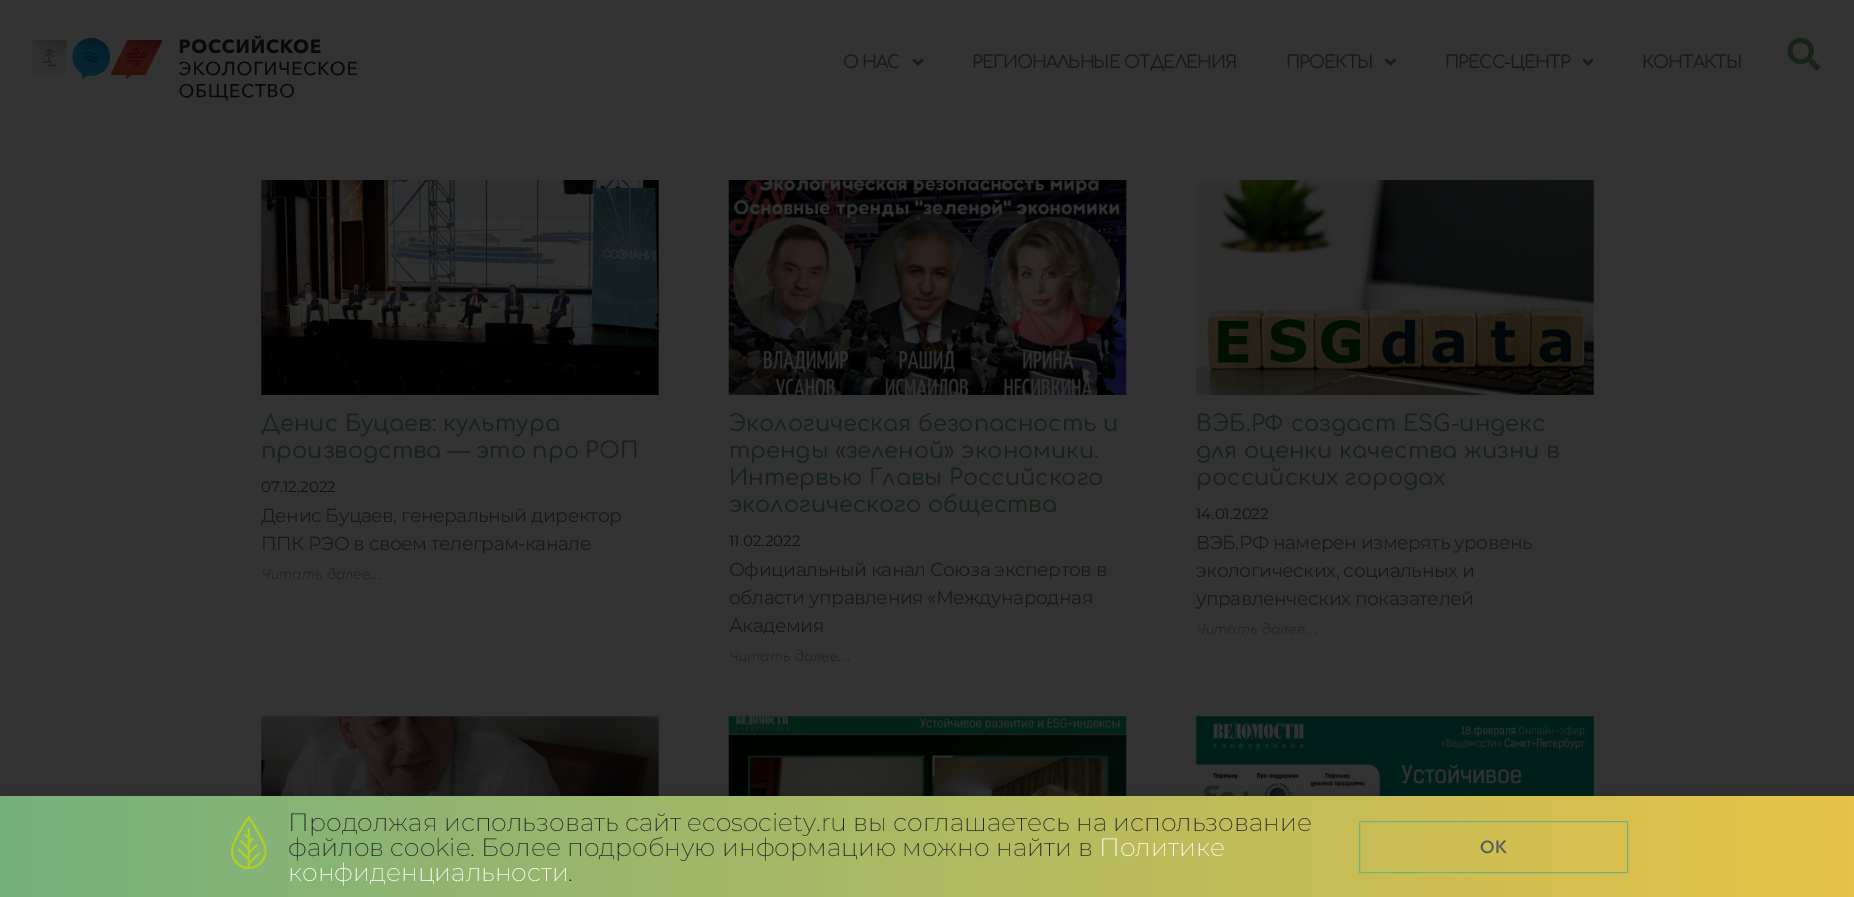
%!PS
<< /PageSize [1854 897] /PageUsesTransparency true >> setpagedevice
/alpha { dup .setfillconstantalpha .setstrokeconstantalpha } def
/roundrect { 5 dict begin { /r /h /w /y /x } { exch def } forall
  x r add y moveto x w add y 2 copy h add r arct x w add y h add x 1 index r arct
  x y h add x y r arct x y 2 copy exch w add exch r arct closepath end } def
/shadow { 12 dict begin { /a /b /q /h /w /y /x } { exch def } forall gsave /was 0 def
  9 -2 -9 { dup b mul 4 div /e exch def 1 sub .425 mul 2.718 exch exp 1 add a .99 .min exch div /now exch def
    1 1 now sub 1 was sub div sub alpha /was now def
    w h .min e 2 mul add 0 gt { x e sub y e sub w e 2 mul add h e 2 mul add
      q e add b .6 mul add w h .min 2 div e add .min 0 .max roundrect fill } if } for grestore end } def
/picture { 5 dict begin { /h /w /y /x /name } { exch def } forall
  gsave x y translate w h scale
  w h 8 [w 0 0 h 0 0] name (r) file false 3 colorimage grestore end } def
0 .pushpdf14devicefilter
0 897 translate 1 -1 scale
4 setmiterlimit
0.2 setgray
0 0 1854 897 rectfill
(img1.rgb) 32 35 325 66 picture
/Comfortaa-Medium [17.5 0 0 -17.5 0 0] selectfont
0.094 setgray
843 68 moveto -1 0 (О НАС) ashow
(img2.rgb) 912 58 12 8 picture
972 68 moveto -1 0 (РЕГИОНАЛЬНЫЕ ОТДЕЛЕНИЯ) ashow
1286 68 moveto -1 0 (ПРОЕКТЫ) ashow
(img3.rgb) 1385 58 11 8 picture
1445 68 moveto -1 0 (ПРЕСС-ЦЕНТР) ashow
(img2.rgb) 1582 58 12 8 picture
1642 68 moveto -1 0 (КОНТАКТЫ) ashow
(img4.rgb) 1787 37 33 34 picture
(img5.rgb) 261 180 398 215 picture
/Comfortaa-Medium [22.5 0 0 -22.5 0 0] selectfont
0.09 0.137 0.098 setrgbcolor
261 431 moveto (Денис Буцаев: культура) show
261 458 moveto (производства — это про РОП) show
/Montserrat-Regular [15 0 0 -15 0 0] selectfont
0.067 0.071 0.075 setrgbcolor
261 492 moveto (07.12.2022) show
/Montserrat-Regular [18.75 0 0 -18.75 0 0] selectfont
0.094 setgray
261 522 moveto -0.5 0 (Денис Буцаев, генеральный директор) ashow
261 550 moveto -0.5 0 (ППК РЭО в своем телеграм-канале) ashow
/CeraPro-LightItalic [15 0 0 -15 0 0] selectfont
0.09 0.137 0.098 setrgbcolor
261 579 moveto (Читать далее...) show
(img6.rgb) 728 180 399 215 picture
/Comfortaa-Medium [22.5 0 0 -22.5 0 0] selectfont
729 431 moveto (Экологическая безопасность и) show
729 458 moveto (тренды «зеленой» экономики.) show
729 485 moveto (Интервью Главы Российского) show
729 512 moveto (экологического общества) show
/Montserrat-Regular [15 0 0 -15 0 0] selectfont
0.067 0.071 0.075 setrgbcolor
729 546 moveto (11.02.2022) show
/Montserrat-Regular [18.75 0 0 -18.75 0 0] selectfont
0.094 setgray
729 576 moveto -0.5 0 (Официальный канал Союза экспертов в) ashow
729 604 moveto -0.5 0 (области управления «Международная) ashow
729 632 moveto -0.5 0 (Академия) ashow
/CeraPro-LightItalic [15 0 0 -15 0 0] selectfont
0.09 0.137 0.098 setrgbcolor
729 661 moveto (Читать далее...) show
(img7.rgb) 1196 180 398 215 picture
/Comfortaa-Medium [22.5 0 0 -22.5 0 0] selectfont
1196 431 moveto (ВЭБ.РФ создаст ESG-индекс) show
1196 458 moveto (для оценки качества жизни в) show
1196 485 moveto (российских городах) show
/Montserrat-Regular [15 0 0 -15 0 0] selectfont
0.067 0.071 0.075 setrgbcolor
1196 519 moveto (14.01.2022) show
/Montserrat-Regular [18.75 0 0 -18.75 0 0] selectfont
0.094 setgray
1196 549 moveto -0.5 0 (ВЭБ.РФ намерен измерять уровень) ashow
1196 577 moveto -0.5 0 (экологических, социальных и) ashow
1196 605 moveto -0.5 0 (управленческих показателей) ashow
/CeraPro-LightItalic [15 0 0 -15 0 0] selectfont
0.09 0.137 0.098 setrgbcolor
1196 634 moveto (Читать далее...) show
(img8.rgb) 261 716 398 80 picture
(img9.rgb) 728 716 399 80 picture
(img10.rgb) 1196 716 398 80 picture
0 setgray
-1 803 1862 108 0 14.5 0.2 shadow
gsave newpath 0 796 moveto 1854 796 lineto 1854 897 lineto 0 897 lineto closepath clip newpath
<< /ShadingType 2 /ColorSpace /DeviceRGB /Coords [0 847 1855 847] /Extend [true true] /Function << /FunctionType 2 /Domain [0 1] /C0 [0.459 0.694 0.49] /C1 [0.906 0.761 0.282] /N 1 >> >> shfill grestore
(img11.rgb) 230 815 37 54 picture
/Montserrat-ExtraLight [25 0 0 -25 0 0] selectfont
0.141 0.149 0.161 setrgbcolor
288 831 moveto (Продолжая использовать сайт ecosociety.ru вы соглашаетесь на использование) show
288 856 moveto (файлов cookie. Более подробную информацию можно найти в) show
1 setgray
1099 856 moveto (Политике) show
288 881 moveto (конфиденциальности) show
0.141 0.149 0.161 setrgbcolor
568 881 moveto (.) show
0.459 0.694 0.49 setrgbcolor
1359.5 821.5 268 51 rectstroke
/CeraPro-Medium [18.75 0 0 -18.75 0 0] selectfont
0.329 0.349 0.373 setrgbcolor
1480 853 moveto (OK) show
.poppdf14devicefilter showpage
